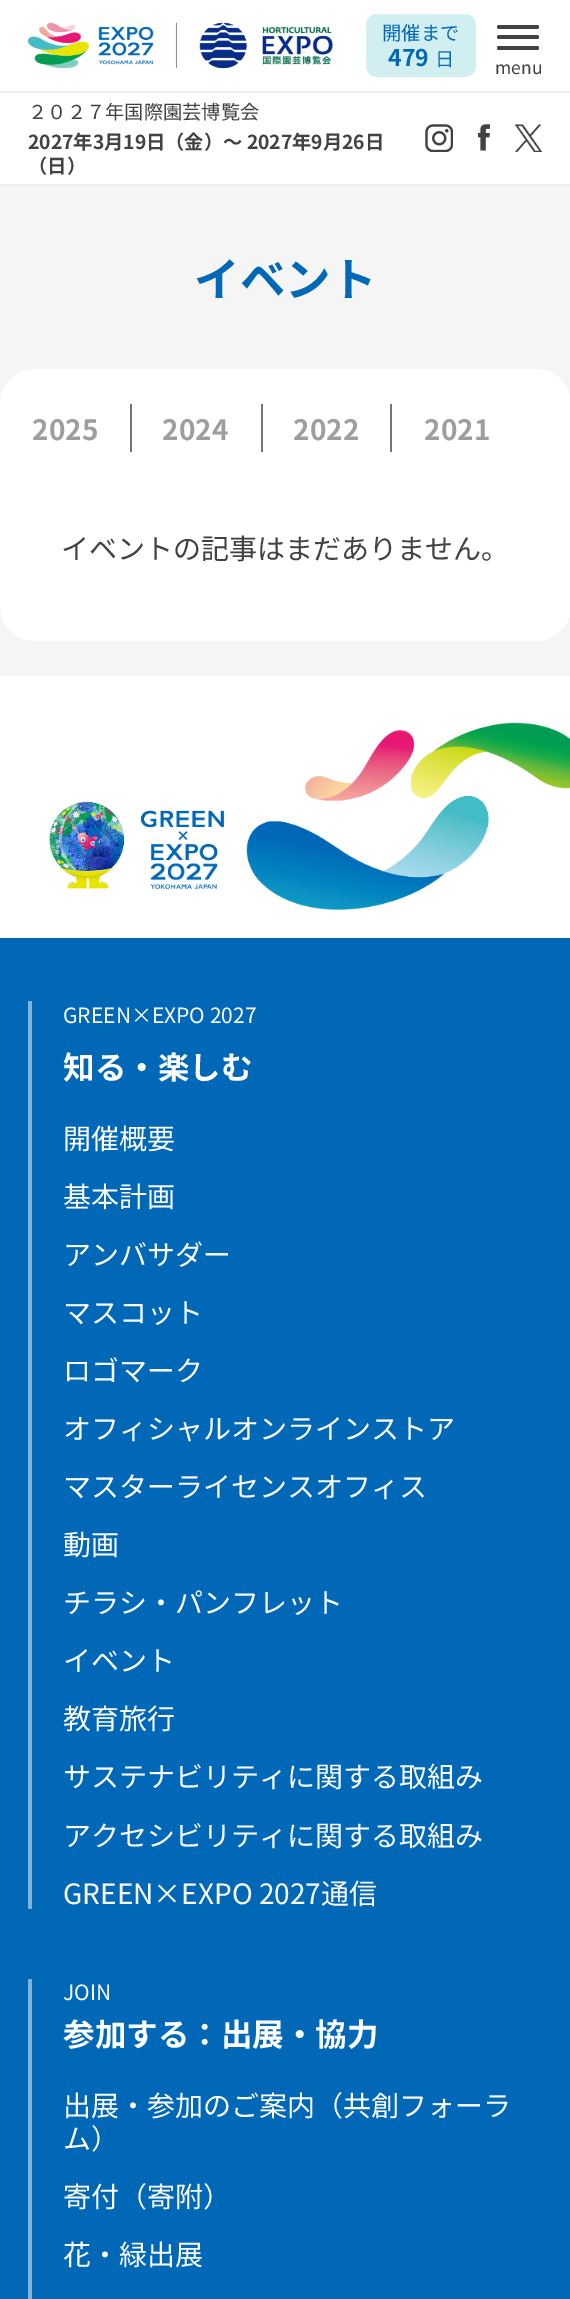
%!PS
<< /PageSize [570 2299] >> setpagedevice
/roundrect { 5 dict begin { /r /h /w /y /x } { exch def } forall
  x r add y moveto x w add y 2 copy h add r arct x w add y h add x 1 index r arct
  x y h add x y r arct x y 2 copy exch w add exch r arct closepath end } def
/picture { 5 dict begin { /h /w /y /x /name } { exch def } forall
  gsave x y translate w h scale
  w h 8 [w 0 0 h 0 0] name (r) file false 3 colorimage grestore end } def
0 2299 translate 1 -1 scale
4 setmiterlimit
1 setgray
0 0 570 2299 rectfill
0.933 setgray
0 91 570 2 rectfill
(img1.rgb) 28 22 305 47 picture
0.82 0.933 0.945 setrgbcolor
365 13 112 65 11 roundrect gsave fill grestore
1 setgray
2 setlinewidth
stroke
/NotoSansJP-Regular [19.25 0 0 -19.25 0 0] selectfont
0 0.408 0.718 setrgbcolor
382 40 moveto (開催まで) show
/NotoSansJP-Bold [23 0 0 -23 0 0] selectfont
388 66 moveto (479) show
/NotoSansJP-Regular [19.25 0 0 -19.25 0 0] selectfont
435 66 moveto (日) show
0.259 setgray
497 25 42 4 2 roundrect fill
497 35 42 4 2 roundrect fill
497 46 42 4 2 roundrect fill
/NotoSansJP-Regular [17.5 0 0 -17.5 0 0] selectfont
495 74 moveto (menu) show
0.933 setgray
0 184 570 2 rectfill
/NotoSansJP-Regular [19.25 0 0 -19.25 0 0] selectfont
0.259 setgray
28 119 moveto (２０２７年国際園芸博覧会) show
/NotoSansJP-Bold [19.25 0 0 -19.25 0 0] selectfont
28 149 moveto (2027年3月19日（金）～ 2027年9月26日) show
28 173 moveto (（日）) show
(img2.rgb) 425 124 28 28 picture
(img3.rgb) 478 124 12 27 picture
(img4.rgb) 515 124 28 28 picture
0.961 setgray
0 186 570 490 rectfill
/NotoSansJP-Bold [45.5 0 0 -45.5 0 0] selectfont
0 0.408 0.718 setrgbcolor
194 296 moveto (イベント) show
1 setgray
0 369 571 272 35 roundrect fill
/NotoSansJP-Bold [28 0 0 -28 0 0] selectfont
0.62 setgray
32 440 moveto (2025) show
0.459 setgray
130 404 2 48 rectfill
0.62 setgray
162 440 moveto (2024) show
0.459 setgray
261 404 2 48 rectfill
0.62 setgray
293 440 moveto (2022) show
0.459 setgray
390 404 2 48 rectfill
0.62 setgray
424 440 moveto (2021) show
/NotoSansJP-Regular [28 0 0 -28 0 0] selectfont
0.259 setgray
61 559 moveto (イベントの記事はまだありません。) show
(img5.rgb) 49 801 175 88 picture
(img6.rgb) 246 722 324 188 picture
0 0.408 0.718 setrgbcolor
0 938 570 1361 rectfill
0.502 0.706 0.859 setrgbcolor
28 1001 4 908 rectfill
/NotoSansJP-Regular [21 0 0 -21 0 0] selectfont
1 setgray
63 1023 moveto (GREEN×EXPO 2027) show
/NotoSansJP-Bold [31.5 0 0 -31.5 0 0] selectfont
63 1079 moveto (知る・楽しむ) show
/NotoSansJP-Regular [28 0 0 -28 0 0] selectfont
63 1149 moveto (開催概要) show
63 1207 moveto (基本計画) show
63 1265 moveto (アンバサダー) show
63 1323 moveto (マスコット) show
63 1381 moveto (ロゴマーク) show
63 1439 moveto (オフィシャルオンラインストア) show
63 1497 moveto (マスターライセンスオフィス) show
63 1555 moveto (動画) show
63 1613 moveto (チラシ・パンフレット) show
63 1671 moveto (イベント) show
63 1729 moveto (教育旅行) show
63 1787 moveto (サステナビリティに関する取組み) show
63 1846 moveto (アクセシビリティに関する取組み) show
63 1904 moveto (GREEN×EXPO 2027通信) show
0.502 0.706 0.859 setrgbcolor
28 1979 4 320 rectfill
/NotoSansJP-Regular [21 0 0 -21 0 0] selectfont
1 setgray
63 2000 moveto (JOIN) show
/NotoSansJP-Bold [31.5 0 0 -31.5 0 0] selectfont
63 2046 moveto (参加する：出展・協力) show
/NotoSansJP-Regular [28 0 0 -28 0 0] selectfont
63 2116 moveto (出展・参加のご案内（共創フォーラ) show
63 2149 moveto (ム）) show
63 2207 moveto (寄付（寄附）) show
63 2265 moveto (花・緑出展) show
showpage
